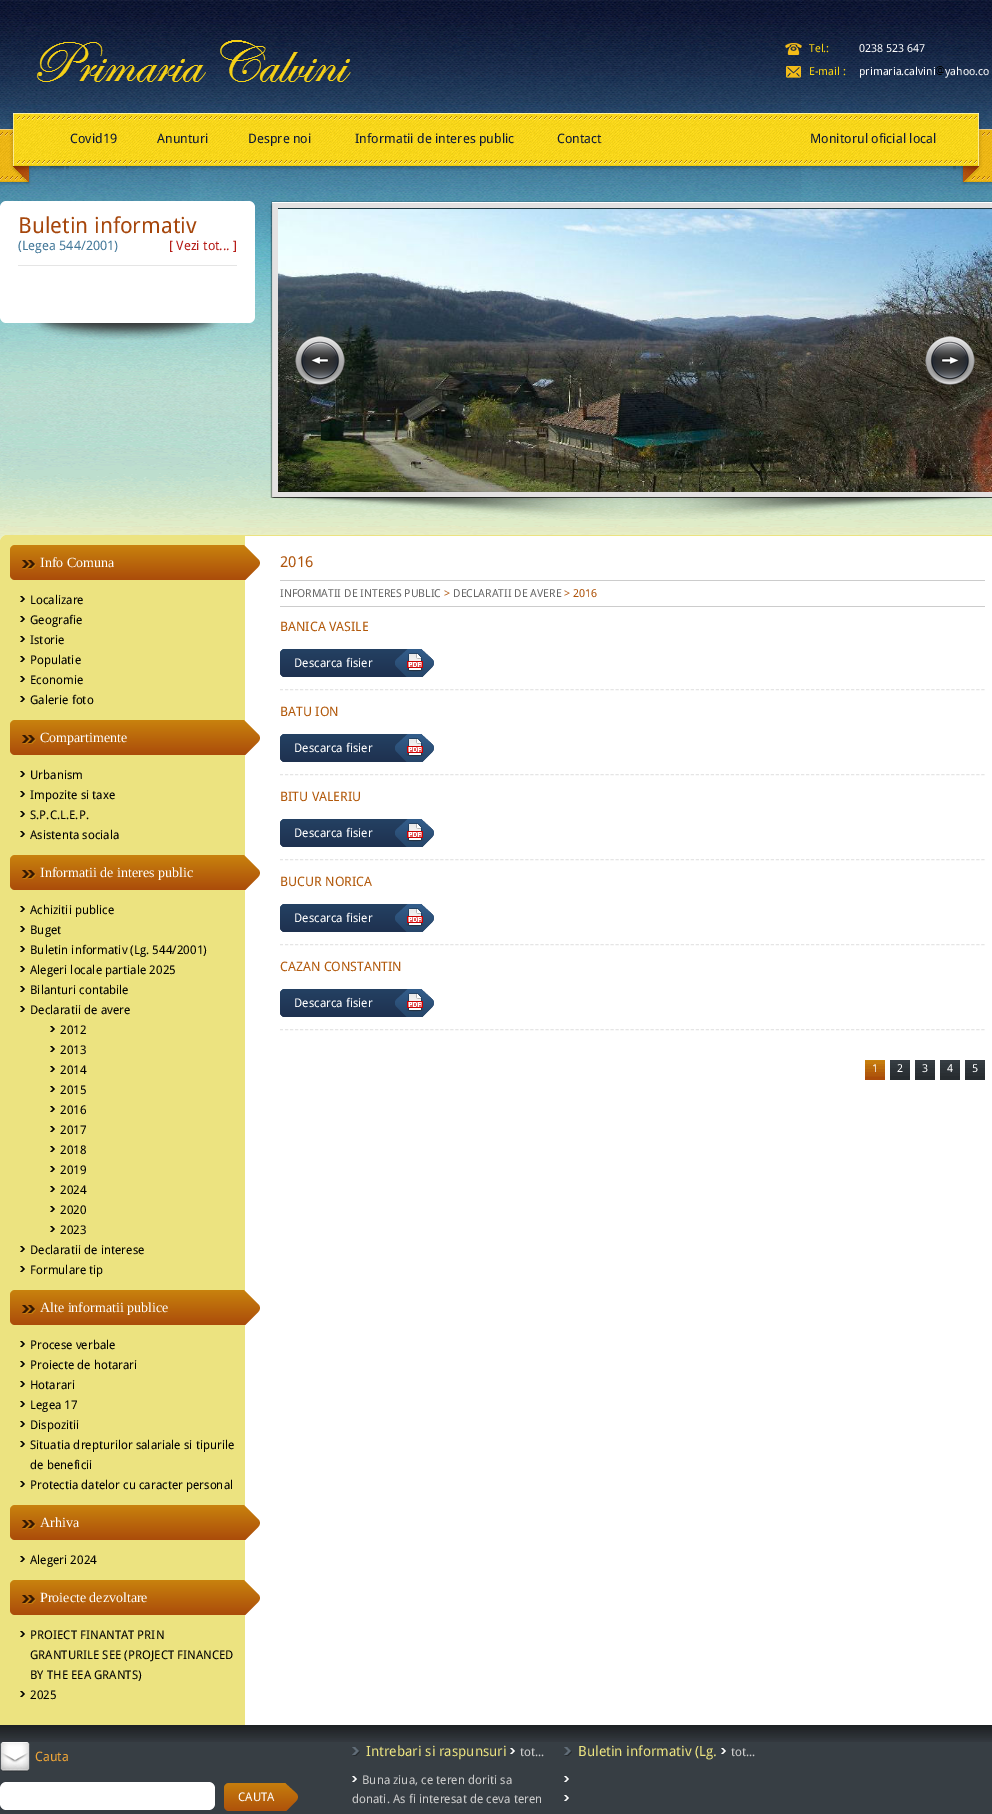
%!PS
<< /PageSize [992 1814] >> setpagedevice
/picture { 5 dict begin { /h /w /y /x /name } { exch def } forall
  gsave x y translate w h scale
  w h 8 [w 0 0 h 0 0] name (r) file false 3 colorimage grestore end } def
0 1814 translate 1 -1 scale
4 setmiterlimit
1 setgray
0 0 992 1814 rectfill
(img1.rgb) 0 0 992 540 picture
(img2.rgb) 36 40 315 42 picture
(img3.rgb) 785 43 17 12 picture
/DroidSans-Regular [11 0 0 -11 0 0] selectfont
0.965 0.824 0.078 setrgbcolor
809 52 moveto (Tel.:) show
1 setgray
859 52 moveto (0238 523 647) show
(img4.rgb) 786 66 15 12 picture
0.965 0.824 0.078 setrgbcolor
809 75 moveto (E-mail :) show
1 setgray
859 75 moveto (primaria.calvini) show
(img5.rgb) 935 66 10 9 picture
945 75 moveto (yahoo.co) show
(img6.rgb) 0 113 992 72 picture
/DroidSans-Regular [13 0 0 -13 0 0] selectfont
0.047 0.09 0.212 setrgbcolor
70 143 moveto (Covid19) show
157 143 moveto (Anunturi) show
248 143 moveto (Despre noi) show
355 143 moveto (Informatii de interes public) show
557 143 moveto (Contact) show
810 143 moveto (Monitorul oficial local) show
(img7.rgb) 0 201 255 10 picture
1 setgray
0 211 255 101 rectfill
0.898 setgray
18 265 219 1 rectfill
/DroidSans-Regular [22 0 0 -22 0 0] selectfont
0.651 0.275 0.043 setrgbcolor
18 233 moveto (Buletin informativ) show
/DroidSans-Regular [13 0 0 -13 0 0] selectfont
0.267 0.475 0.604 setrgbcolor
18 250 moveto (\(Legea 544/2001\)) show
0.714 0.114 0.094 setrgbcolor
169 250 moveto ([ Vezi tot... ]) show
(img8.rgb) 0 312 255 28 picture
(img9.rgb) 270 201 722 318 picture
(img10.rgb) 278 209 714 283 picture
(img11.rgb) 295 336 50 50 picture
(img12.rgb) 925 336 50 50 picture
(img13.rgb) 0 535 992 10 picture
(img14.rgb) 0 545 992 1180 picture
(img15.rgb) 10 545 250 35 picture
/LiberationSerif-Regular [14 0 0 -14 0 0] selectfont
1 setgray
40 567 moveto (Info Comuna) show
(img16.rgb) 20 596 5 6 picture
/DroidSans-Regular [12 0 0 -12 0 0] selectfont
0 setgray
30 604 moveto (Localizare) show
(img16.rgb) 20 616 5 6 picture
30 624 moveto (Geografie) show
(img16.rgb) 20 636 5 6 picture
30 644 moveto (Istorie) show
(img16.rgb) 20 656 5 6 picture
30 664 moveto (Populatie) show
(img16.rgb) 20 676 5 6 picture
30 684 moveto (Economie) show
(img16.rgb) 20 696 5 6 picture
30 704 moveto (Galerie foto) show
(img15.rgb) 10 720 250 35 picture
/LiberationSerif-Regular [14 0 0 -14 0 0] selectfont
1 setgray
40 742 moveto (Compartimente) show
(img16.rgb) 20 771 5 6 picture
/DroidSans-Regular [12 0 0 -12 0 0] selectfont
0 setgray
30 779 moveto (Urbanism) show
(img16.rgb) 20 791 5 6 picture
30 799 moveto (Impozite si taxe) show
(img16.rgb) 20 811 5 6 picture
30 819 moveto (S.P.C.L.E.P.) show
(img16.rgb) 20 831 5 6 picture
30 839 moveto (Asistenta sociala) show
(img15.rgb) 10 855 250 35 picture
/LiberationSerif-Regular [14 0 0 -14 0 0] selectfont
1 setgray
40 877 moveto (Informatii de interes public) show
(img16.rgb) 20 906 5 6 picture
/DroidSans-Regular [12 0 0 -12 0 0] selectfont
0 setgray
30 914 moveto (Achizitii publice) show
(img16.rgb) 20 926 5 6 picture
30 934 moveto (Buget) show
(img16.rgb) 20 946 5 6 picture
30 954 moveto (Buletin informativ \(Lg. 544/2001\)) show
(img16.rgb) 20 966 5 6 picture
30 974 moveto (Alegeri locale partiale 2025) show
(img16.rgb) 20 986 5 6 picture
30 994 moveto (Bilanturi contabile) show
(img16.rgb) 20 1006 5 6 picture
30 1014 moveto (Declaratii de avere) show
(img16.rgb) 50 1026 5 6 picture
60 1034 moveto (2012) show
(img16.rgb) 50 1046 5 6 picture
60 1054 moveto (2013) show
(img16.rgb) 50 1066 5 6 picture
60 1074 moveto (2014) show
(img16.rgb) 50 1086 5 6 picture
60 1094 moveto (2015) show
(img16.rgb) 50 1106 5 6 picture
60 1114 moveto (2016) show
(img16.rgb) 50 1126 5 6 picture
60 1134 moveto (2017) show
(img16.rgb) 50 1146 5 6 picture
60 1154 moveto (2018) show
(img16.rgb) 50 1166 5 6 picture
60 1174 moveto (2019) show
(img16.rgb) 50 1186 5 6 picture
60 1194 moveto (2024) show
(img16.rgb) 50 1206 5 6 picture
60 1214 moveto (2020) show
(img16.rgb) 50 1226 5 6 picture
60 1234 moveto (2023) show
(img16.rgb) 20 1246 5 6 picture
30 1254 moveto (Declaratii de interese) show
(img16.rgb) 20 1266 5 6 picture
30 1274 moveto (Formulare tip) show
(img15.rgb) 10 1290 250 35 picture
/LiberationSerif-Regular [14 0 0 -14 0 0] selectfont
1 setgray
40 1312 moveto (Alte informatii publice) show
(img16.rgb) 20 1341 5 6 picture
/DroidSans-Regular [12 0 0 -12 0 0] selectfont
0 setgray
30 1349 moveto (Procese verbale) show
(img16.rgb) 20 1361 5 6 picture
30 1369 moveto (Proiecte de hotarari) show
(img16.rgb) 20 1381 5 6 picture
30 1389 moveto (Hotarari) show
(img16.rgb) 20 1401 5 6 picture
30 1409 moveto (Legea 17) show
(img16.rgb) 20 1421 5 6 picture
30 1429 moveto (Dispozitii) show
(img16.rgb) 20 1441 5 6 picture
30 1449 moveto (Situatia drepturilor salariale si tipurile) show
30 1469 moveto (de beneficii) show
(img16.rgb) 20 1481 5 6 picture
30 1489 moveto (Protectia datelor cu caracter personal) show
(img15.rgb) 10 1505 250 35 picture
/LiberationSerif-Regular [14 0 0 -14 0 0] selectfont
1 setgray
40 1527 moveto (Arhiva) show
(img16.rgb) 20 1556 5 6 picture
/DroidSans-Regular [12 0 0 -12 0 0] selectfont
0 setgray
30 1564 moveto (Alegeri 2024) show
(img15.rgb) 10 1580 250 35 picture
/LiberationSerif-Regular [14 0 0 -14 0 0] selectfont
1 setgray
40 1602 moveto (Proiecte dezvoltare) show
(img16.rgb) 20 1631 5 6 picture
/DroidSans-Regular [12 0 0 -12 0 0] selectfont
0 setgray
30 1639 moveto (PROIECT FINANTAT PRIN) show
30 1659 moveto (GRANTURILE SEE \(PROJECT FINANCED) show
30 1679 moveto (BY THE EEA GRANTS\)) show
(img16.rgb) 20 1691 5 6 picture
30 1699 moveto (2025) show
/DroidSans-Regular [15 0 0 -15 0 0] selectfont
0.682 0.325 0.039 setrgbcolor
280 567 moveto (2016) show
0.8 setgray
280 580 705 1 rectfill
280 606 705 1 rectfill
/DroidSans-Regular [11 0 0 -11 0 0] selectfont
0.4 setgray
280 597 moveto (INFORMATII DE INTERES PUBLIC) show
0.682 0.325 0.039 setrgbcolor
444 597 moveto (>) show
0.4 setgray
453 597 moveto (DECLARATII DE AVERE) show
0.682 0.325 0.039 setrgbcolor
564 597 moveto (> 2016) show
0.898 setgray
[3 2.01] 0 setdash
newpath 280 689.5 moveto 985 689.5 lineto stroke
/DroidSans-Regular [13 0 0 -13 0 0] selectfont
0.698 0.349 0.043 setrgbcolor
280 631 moveto (BANICA VASILE) show
(img17.rgb) 280 649 154 28 picture
/DroidSans-Regular [12 0 0 -12 0 0] selectfont
1 setgray
294 667 moveto (Descarca fisier) show
0.898 setgray
newpath 280 774.5 moveto 985 774.5 lineto stroke
/DroidSans-Regular [13 0 0 -13 0 0] selectfont
0.698 0.349 0.043 setrgbcolor
280 716 moveto (BATU ION) show
(img17.rgb) 280 734 154 28 picture
/DroidSans-Regular [12 0 0 -12 0 0] selectfont
1 setgray
294 752 moveto (Descarca fisier) show
0.898 setgray
newpath 280 859.5 moveto 985 859.5 lineto stroke
/DroidSans-Regular [13 0 0 -13 0 0] selectfont
0.698 0.349 0.043 setrgbcolor
280 801 moveto (BITU VALERIU) show
(img17.rgb) 280 819 154 28 picture
/DroidSans-Regular [12 0 0 -12 0 0] selectfont
1 setgray
294 837 moveto (Descarca fisier) show
0.898 setgray
newpath 280 944.5 moveto 985 944.5 lineto stroke
/DroidSans-Regular [13 0 0 -13 0 0] selectfont
0.698 0.349 0.043 setrgbcolor
280 886 moveto (BUCUR NORICA) show
(img17.rgb) 280 904 154 28 picture
/DroidSans-Regular [12 0 0 -12 0 0] selectfont
1 setgray
294 922 moveto (Descarca fisier) show
0.898 setgray
newpath 280 1029.5 moveto 985 1029.5 lineto stroke
/DroidSans-Regular [13 0 0 -13 0 0] selectfont
0.698 0.349 0.043 setrgbcolor
280 971 moveto (CAZAN CONSTANTIN) show
(img17.rgb) 280 989 154 28 picture
/DroidSans-Regular [12 0 0 -12 0 0] selectfont
1 setgray
294 1007 moveto (Descarca fisier) show
(img18.rgb) 865 1060 20 20 picture
/DroidSans-Regular [11 0 0 -11 0 0] selectfont
872 1072 moveto (1) show
(img19.rgb) 890 1060 20 20 picture
897 1072 moveto (2) show
(img19.rgb) 915 1060 20 20 picture
922 1072 moveto (3) show
(img19.rgb) 940 1060 20 20 picture
947 1072 moveto (4) show
(img19.rgb) 965 1060 20 20 picture
972 1072 moveto (5) show
0.216 0.243 0.267 setrgbcolor
0 1742 992 72 rectfill
(img20.rgb) 0 1725 992 17 picture
(img21.rgb) 0 1742 30 30 picture
/DroidSans-Regular [13 0 0 -13 0 0] selectfont
0.945 0.655 0.22 setrgbcolor
35 1761 moveto (Cauta) show
(img22.rgb) 0 1782 215 28 picture
(img23.rgb) 224 1783 74 28 picture
/DroidSans-Regular [12 0 0 -12 0 0] selectfont
1 setgray
238 1801 moveto (CAUTA) show
(img24.rgb) 352 1747 8 9 picture
/DroidSans-Regular [14 0 0 -14 0 0] selectfont
0.925 0.89 0.502 setrgbcolor
366 1756 moveto (Intrebari si raspunsuri) show
(img25.rgb) 510 1748 5 6 picture
/DroidSans-Regular [12 0 0 -12 0 0] selectfont
0.8 setgray
520 1756 moveto (tot...) show
(img25.rgb) 352 1776 5 6 picture
362 1784 moveto (Buna ziua, ce teren doriti sa) show
352 1803 moveto (donati. As fi interesat de ceva teren) show
(img24.rgb) 564 1747 8 9 picture
/DroidSans-Regular [14 0 0 -14 0 0] selectfont
0.925 0.89 0.502 setrgbcolor
578 1756 moveto (Buletin informativ \(Lg.) show
(img25.rgb) 721 1748 5 6 picture
/DroidSans-Regular [12 0 0 -12 0 0] selectfont
0.8 setgray
731 1756 moveto (tot...) show
(img25.rgb) 564 1776 5 6 picture
(img25.rgb) 564 1795 5 6 picture
showpage
